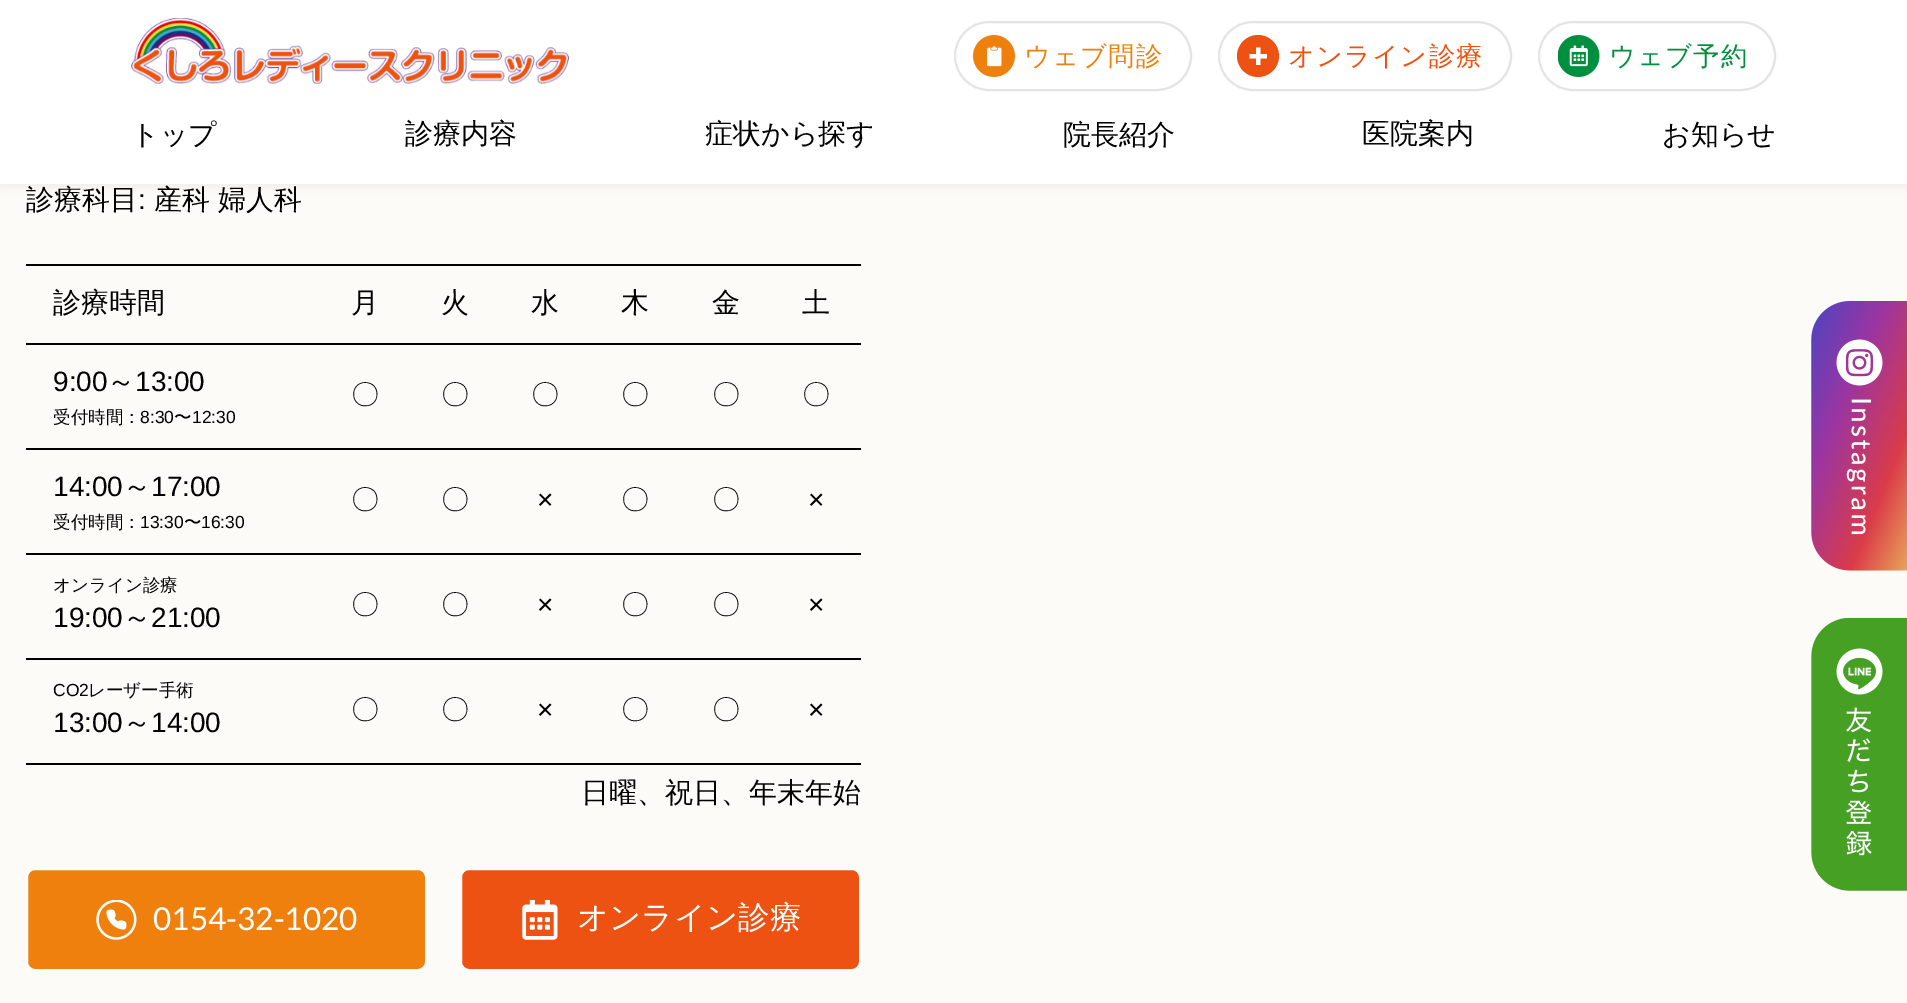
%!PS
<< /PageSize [1907 1003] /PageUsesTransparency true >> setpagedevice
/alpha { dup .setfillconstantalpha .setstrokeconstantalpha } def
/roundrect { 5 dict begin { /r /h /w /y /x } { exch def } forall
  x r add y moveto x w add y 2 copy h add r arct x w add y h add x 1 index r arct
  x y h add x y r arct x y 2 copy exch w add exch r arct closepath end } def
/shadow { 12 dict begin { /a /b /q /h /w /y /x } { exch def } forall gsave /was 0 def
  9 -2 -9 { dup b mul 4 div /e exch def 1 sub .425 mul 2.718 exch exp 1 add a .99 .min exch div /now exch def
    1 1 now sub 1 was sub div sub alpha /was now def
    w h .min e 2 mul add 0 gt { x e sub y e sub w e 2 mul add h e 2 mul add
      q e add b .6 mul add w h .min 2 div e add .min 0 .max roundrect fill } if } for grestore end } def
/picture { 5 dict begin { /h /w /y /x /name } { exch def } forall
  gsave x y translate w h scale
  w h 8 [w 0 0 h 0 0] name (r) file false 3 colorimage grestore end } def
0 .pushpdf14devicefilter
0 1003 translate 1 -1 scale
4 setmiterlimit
0.992 0.984 0.973 setrgbcolor
0 0 1907 1003 rectfill
0.58 setgray
0 4 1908 183 0 4.5 0.16 shadow
1 setgray
0 0 1907 184 rectfill
(img1.rgb) 131 18 438 66 picture
0.894 setgray
2 setlinewidth
955 22 236 68 34 roundrect stroke
(img2.rgb) 973 35 42 42 picture
/WenQuanYiZenHei-Medium [26.25 0 0 -26.25 0 0] selectfont
0.937 0.502 0.055 setrgbcolor
1024 65 moveto 1.25 0 (ウェブ問診) ashow
0.894 setgray
1219 22 292 68 34 roundrect stroke
0.929 0.322 0.071 setrgbcolor
newpath 1258 56 21 0 360 arc closepath fill
1 setgray
newpath 1256 54 moveto 1256 47.5 lineto 1260.5 47.5 lineto 1260.5 54 lineto 1267 54 lineto 1267 58.5 lineto 1260.5 58.5 lineto 1260.5 65 lineto 1256 65 lineto 1256 58.5 lineto 1249.5 58.5 lineto 1249.5 54 lineto closepath fill
0.929 0.322 0.071 setrgbcolor
1288 65 moveto 1.25 0 (オンライン診療) ashow
0.894 setgray
1539 22 236 68 34 roundrect stroke
(img3.rgb) 1558 35 42 42 picture
0 0.561 0.243 setrgbcolor
1609 65 moveto 1.25 0 (ウェブ予約) ashow
/WenQuanYiZenHei-Medium [28 0 0 -28 0 0] selectfont
0 setgray
131 144 moveto (トップ) show
405 143 moveto (診療内容) show
705 143 moveto (症状から探す) show
1063 144 moveto (院長紹介) show
1362 143 moveto (医院案内) show
1662 144 moveto (お知らせ) show
26 209 moveto (診療科目) show
/LiberationSans-Regular [28 0 0 -28 0 0] selectfont
138 209 moveto (:) show
/WenQuanYiZenHei-Medium [28 0 0 -28 0 0] selectfont
154 209 moveto (産科 婦人科) show
26 264 835 2 rectfill
26 343 835 2 rectfill
53 312 moveto (診療時間) show
351 312 moveto (月) show
441 312 moveto (火) show
531 312 moveto (水) show
621 312 moveto (木) show
712 312 moveto (金) show
802 312 moveto (土) show
26 448 835 2 rectfill
/LiberationSans-Regular [28 0 0 -28 0 0] selectfont
53 391 moveto (9:00) show
/WenQuanYiZenHei-Medium [28 0 0 -28 0 0] selectfont
107 391 moveto (～) show
/LiberationSans-Regular [28 0 0 -28 0 0] selectfont
135 391 moveto (13:00) show
/WenQuanYiZenHei-Medium [17.5 0 0 -17.5 0 0] selectfont
53 423 moveto (受付時間：) show
/LiberationSans-Regular [17.5 0 0 -17.5 0 0] selectfont
140 423 moveto (8:30) show
/WenQuanYiZenHei-Medium [17.5 0 0 -17.5 0 0] selectfont
174 423 moveto (〜) show
/LiberationSans-Regular [17.5 0 0 -17.5 0 0] selectfont
192 423 moveto (12:30) show
/WenQuanYiZenHei-Medium [28 0 0 -28 0 0] selectfont
351 404 moveto (〇) show
441 404 moveto (〇) show
531 404 moveto (〇) show
621 404 moveto (〇) show
712 404 moveto (〇) show
802 404 moveto (〇) show
26 553 835 2 rectfill
/LiberationSans-Regular [28 0 0 -28 0 0] selectfont
53 496 moveto (14:00) show
/WenQuanYiZenHei-Medium [28 0 0 -28 0 0] selectfont
123 496 moveto (～) show
/LiberationSans-Regular [28 0 0 -28 0 0] selectfont
151 496 moveto (17:00) show
/WenQuanYiZenHei-Medium [17.5 0 0 -17.5 0 0] selectfont
53 528 moveto (受付時間：) show
/LiberationSans-Regular [17.5 0 0 -17.5 0 0] selectfont
140 528 moveto (13:30) show
/WenQuanYiZenHei-Medium [17.5 0 0 -17.5 0 0] selectfont
184 528 moveto (〜) show
/LiberationSans-Regular [17.5 0 0 -17.5 0 0] selectfont
201 528 moveto (16:30) show
/WenQuanYiZenHei-Medium [28 0 0 -28 0 0] selectfont
351 509 moveto (〇) show
441 509 moveto (〇) show
/LiberationSans-Regular [28 0 0 -28 0 0] selectfont
537 509 moveto (×) show
/WenQuanYiZenHei-Medium [28 0 0 -28 0 0] selectfont
621 509 moveto (〇) show
712 509 moveto (〇) show
/LiberationSans-Regular [28 0 0 -28 0 0] selectfont
808 509 moveto (×) show
26 658 835 2 rectfill
/WenQuanYiZenHei-Medium [17.5 0 0 -17.5 0 0] selectfont
53 591 moveto (オンライン診療) show
/LiberationSans-Regular [28 0 0 -28 0 0] selectfont
53 627 moveto (19:00) show
/WenQuanYiZenHei-Medium [28 0 0 -28 0 0] selectfont
123 627 moveto (～) show
/LiberationSans-Regular [28 0 0 -28 0 0] selectfont
151 627 moveto (21:00) show
/WenQuanYiZenHei-Medium [28 0 0 -28 0 0] selectfont
351 614 moveto (〇) show
441 614 moveto (〇) show
/LiberationSans-Regular [28 0 0 -28 0 0] selectfont
537 614 moveto (×) show
/WenQuanYiZenHei-Medium [28 0 0 -28 0 0] selectfont
621 614 moveto (〇) show
712 614 moveto (〇) show
/LiberationSans-Regular [28 0 0 -28 0 0] selectfont
808 614 moveto (×) show
26 763 835 2 rectfill
/LiberationSans-Regular [17.5 0 0 -17.5 0 0] selectfont
53 696 moveto (CO2) show
/WenQuanYiZenHei-Medium [17.5 0 0 -17.5 0 0] selectfont
88 696 moveto (レーザー手術) show
/LiberationSans-Regular [28 0 0 -28 0 0] selectfont
53 732 moveto (13:00) show
/WenQuanYiZenHei-Medium [28 0 0 -28 0 0] selectfont
123 732 moveto (～) show
/LiberationSans-Regular [28 0 0 -28 0 0] selectfont
151 732 moveto (14:00) show
/WenQuanYiZenHei-Medium [28 0 0 -28 0 0] selectfont
351 719 moveto (〇) show
441 719 moveto (〇) show
/LiberationSans-Regular [28 0 0 -28 0 0] selectfont
537 719 moveto (×) show
/WenQuanYiZenHei-Medium [28 0 0 -28 0 0] selectfont
621 719 moveto (〇) show
712 719 moveto (〇) show
/LiberationSans-Regular [28 0 0 -28 0 0] selectfont
808 719 moveto (×) show
/WenQuanYiZenHei-Medium [28 0 0 -28 0 0] selectfont
581 802 moveto (日曜、祝日、年末年始) show
0.937 0.502 0.055 setrgbcolor
27 869 399 101 8 roundrect gsave fill grestore
1 setgray
stroke
(img4.rgb) 96 900 41 40 picture
/Lato-Regular [31.5 0 0 -31.5 0 0] selectfont
153 930 moveto (0154-32-1020) show
0.929 0.322 0.071 setrgbcolor
461 869 399 101 8 roundrect gsave fill grestore
1 setgray
stroke
(img5.rgb) 522 900 36 40 picture
/WenQuanYiZenHei-Medium [31.5 0 0 -31.5 0 0] selectfont
577 928 moveto (オンライン診療) show
(img6.rgb) 1811 301 96 270 picture
(img7.rgb) 1811 618 96 273 picture
.poppdf14devicefilter showpage
